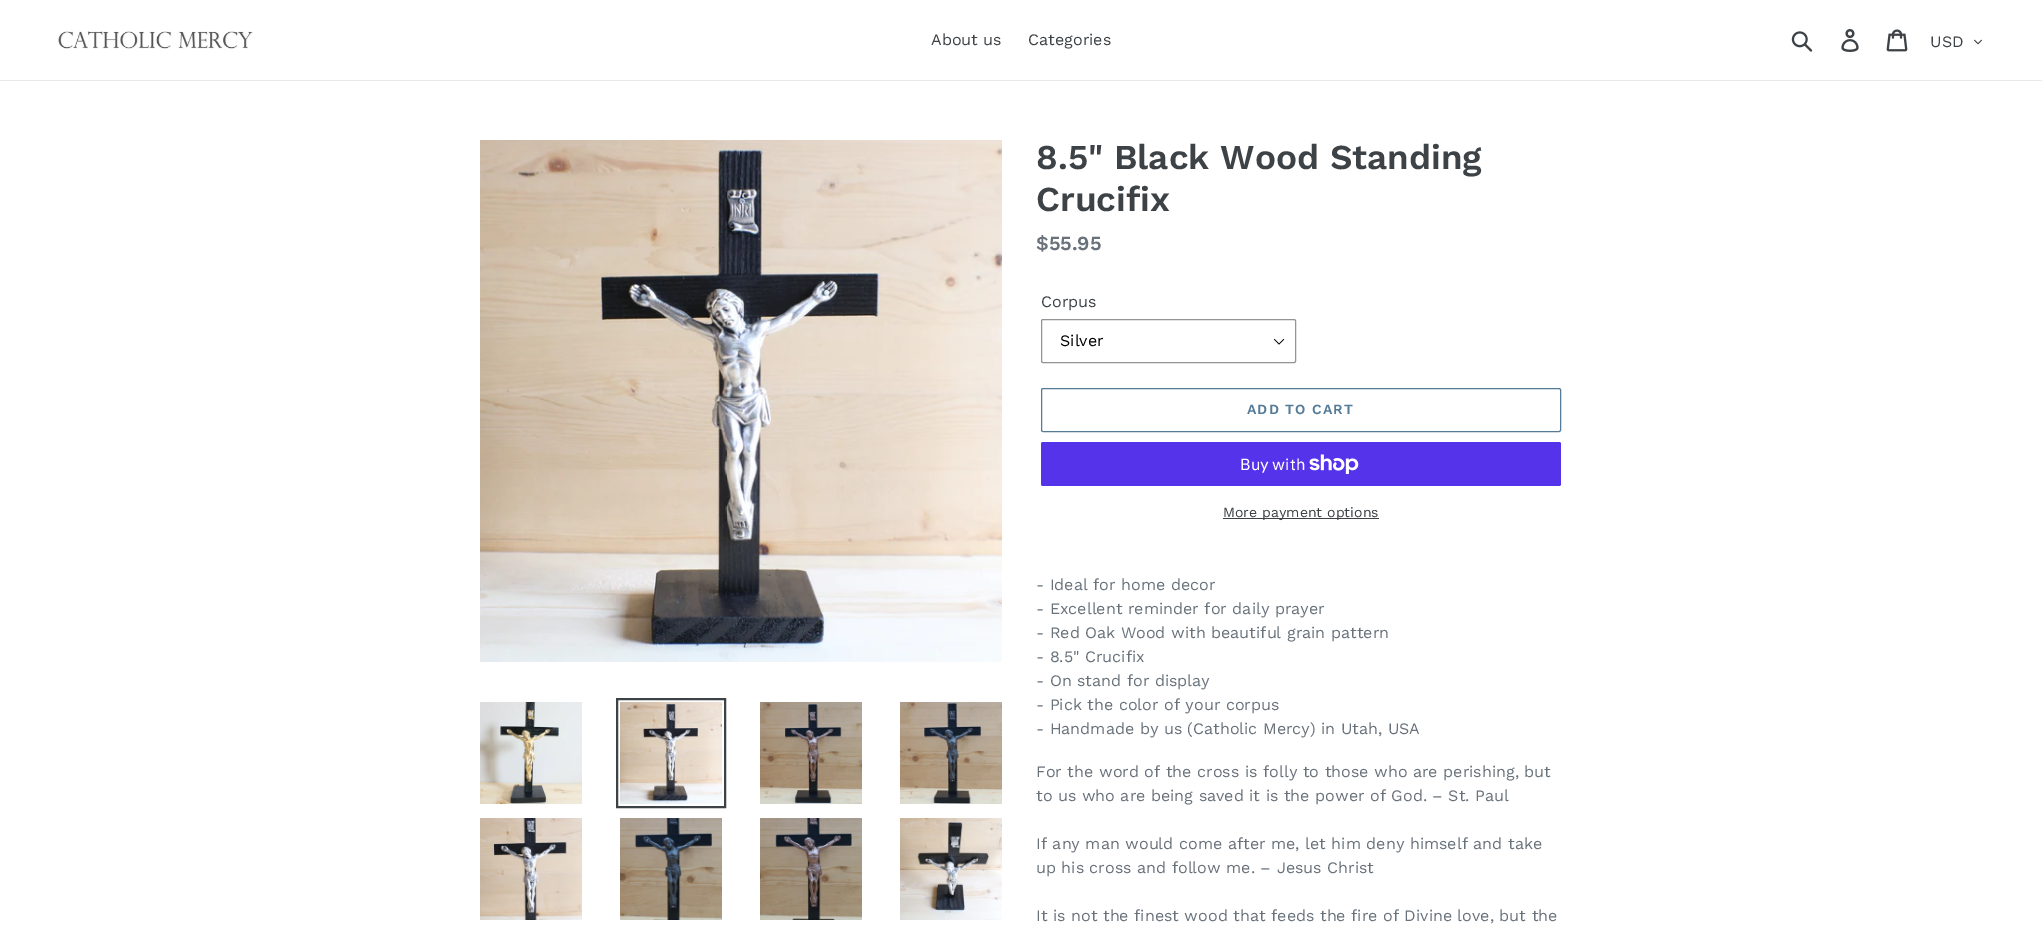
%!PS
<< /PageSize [2042 925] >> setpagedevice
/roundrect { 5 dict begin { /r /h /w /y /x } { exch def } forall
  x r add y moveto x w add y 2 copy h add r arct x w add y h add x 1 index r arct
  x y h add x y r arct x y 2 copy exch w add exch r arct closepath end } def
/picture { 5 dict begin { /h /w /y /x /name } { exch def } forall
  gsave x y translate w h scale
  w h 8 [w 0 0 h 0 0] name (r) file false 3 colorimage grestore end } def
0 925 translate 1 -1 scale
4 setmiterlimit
1 setgray
0 0 2042 925 rectfill
0.91 0.914 0.922 setrgbcolor
0 80 2042 1 rectfill
(img1.rgb) 57 31 196 18 picture
/WorkSans-Regular [16 0 0 -16 0 0] selectfont
0.239 0.259 0.275 setrgbcolor
931 45 moveto (About us) show
1028 45 moveto (Categories) show
(img2.rgb) 1791 31 22 21 picture
(img3.rgb) 1841 29 18 23 picture
(img4.rgb) 1886 29 22 23 picture
1930 47 moveto (USD) show
(img5.rgb) 1974 39 8 6 picture
(img6.rgb) 480 140 522 522 picture
(img7.rgb) 480 702 102 102 picture
2 setlinewidth
617 699 108 108 rectstroke
(img8.rgb) 620 702 102 102 picture
(img9.rgb) 760 702 102 102 picture
(img10.rgb) 900 702 102 102 picture
(img11.rgb) 480 818 102 102 picture
(img12.rgb) 620 818 102 102 picture
(img13.rgb) 760 818 102 102 picture
(img14.rgb) 900 818 102 102 picture
/WorkSans-SemiBold [35 0 0 -35 0 0] selectfont
1036 169 moveto (8.5" Black Wood Standing) show
1036 211 moveto (Crucifix) show
/WorkSans-SemiBold [20 0 0 -20 0 0] selectfont
0.412 0.447 0.482 setrgbcolor
1036 250 moveto ($55.95) show
/WorkSans-Regular [16 0 0 -16 0 0] selectfont
0.239 0.259 0.275 setrgbcolor
1041 307 moveto (Corpus) show
(img15.rgb) 1273 338 12 7 picture
0.58 setgray
1 setlinewidth
1041.5 319.5 254 43 1.5 roundrect stroke
0 setgray
1060 346 moveto (Silver) show
0.333 0.482 0.592 setrgbcolor
1041.5 388.5 519 43 1.5 roundrect stroke
/WorkSans-SemiBold [14 0 0 -14 0 0] selectfont
1247 414 moveto 1.1 0 (ADD TO CART) ashow
0.329 0.2 0.922 setrgbcolor
1041 442 520 44 2 roundrect fill
/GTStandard-Regular [16 0 0 -16 0 0] selectfont
1 setgray
1240 470 moveto (Buy with) show
(img16.rgb) 1309 454 50 20 picture
0.239 0.259 0.275 setrgbcolor
1223 518 156 1 rectfill
/WorkSans-Regular [14 0 0 -14 0 0] selectfont
1223 517 moveto (More payment options) show
/WorkSans-Regular [16 0 0 -16 0 0] selectfont
0.412 0.447 0.482 setrgbcolor
1036 590 moveto (- Ideal for home decor) show
1036 614 moveto (- Excellent reminder for daily prayer) show
1036 638 moveto (- Red Oak Wood with beautiful grain pattern) show
1036 662 moveto (- 8.5" Crucifix) show
1036 686 moveto (- On stand for display) show
1036 710 moveto (- Pick the color of your corpus) show
1036 734 moveto (- Handmade by us \(Catholic Mercy\) in Utah, USA) show
1036 777 moveto (For the word of the cross is folly to those who are perishing, but) show
1036 801 moveto (to us who are being saved it is the power of God. – St. Paul) show
1036 849 moveto (If any man would come after me, let him deny himself and take) show
1036 873 moveto (up his cross and follow me. – Jesus Christ) show
1036 921 moveto (It is not the finest wood that feeds the fire of Divine love, but the) show
showpage
